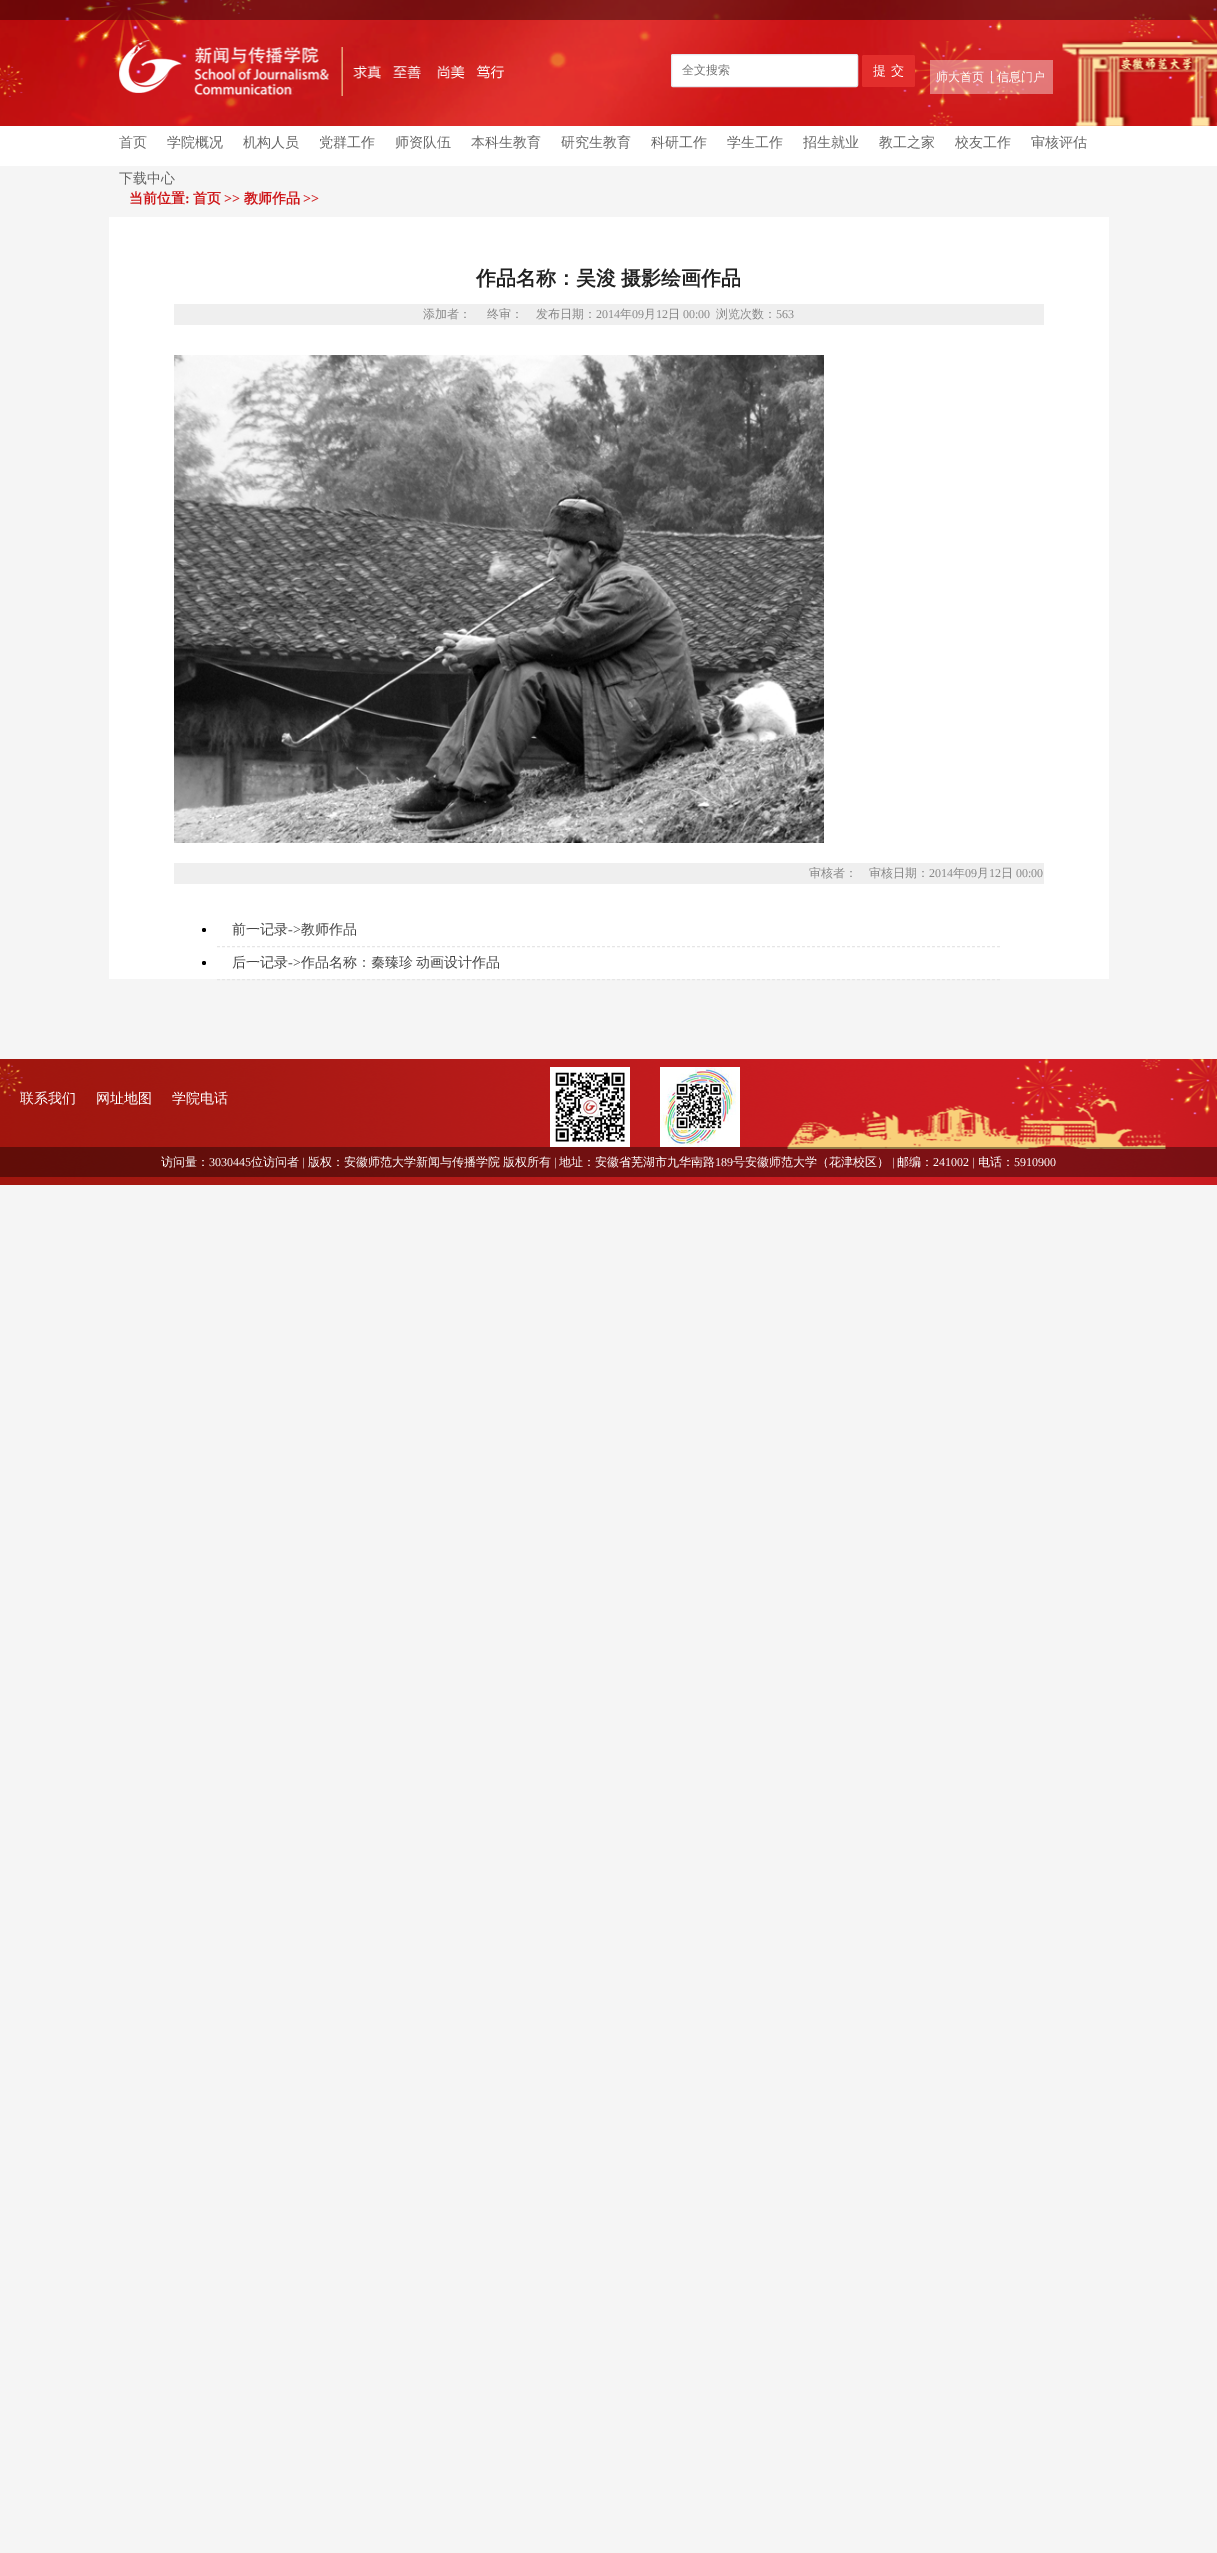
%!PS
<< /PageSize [1217 2553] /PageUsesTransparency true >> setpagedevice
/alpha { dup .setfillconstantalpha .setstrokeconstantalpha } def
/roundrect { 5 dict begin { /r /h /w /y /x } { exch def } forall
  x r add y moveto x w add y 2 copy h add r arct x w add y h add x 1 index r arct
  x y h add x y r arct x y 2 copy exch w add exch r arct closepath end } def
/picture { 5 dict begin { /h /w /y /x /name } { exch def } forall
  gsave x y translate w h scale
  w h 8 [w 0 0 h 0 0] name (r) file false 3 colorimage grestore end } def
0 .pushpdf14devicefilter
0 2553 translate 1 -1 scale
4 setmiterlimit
0.961 setgray
0 0 1217 2553 rectfill
(img1.rgb) 0 0 1217 126 picture
0.4 alpha
0 setgray
0 0 1217 20 rectfill
1 alpha
(img2.rgb) 119 40 385 56 picture
1 setgray
671.5 54.5 186 32 1.5 roundrect gsave fill grestore
0.894 0.906 0.929 setrgbcolor
stroke
/WenQuanYiZenHei-Medium [12 0 0 -12 0 0] selectfont
0.459 setgray
682 74 moveto (全文搜索) show
0.89 0.18 0.173 setrgbcolor
862 55 53 32 2 roundrect fill
/WenQuanYiZenHei-Medium [13 0 0 -13 0 0] selectfont
1 setgray
873 75 moveto 5 0 (提交) ashow
0.4 alpha
930 60 123 34 rectfill
1 alpha
0.957 0.922 0.973 setrgbcolor
991 71 1 12 rectfill
/WenQuanYiZenHei-Medium [12 0 0 -12 0 0] selectfont
1 setgray
936 81 moveto (师大首页) show
997 81 moveto (信息门户) show
0 126 1217 40 rectfill
/WenQuanYiZenHei-Medium [14 0 0 -14 0 0] selectfont
0.4 setgray
119 147 moveto (首页) show
167 147 moveto (学院概况) show
243 147 moveto (机构人员) show
319 147 moveto (党群工作) show
395 147 moveto (师资队伍) show
471 147 moveto (本科生教育) show
561 147 moveto (研究生教育) show
651 147 moveto (科研工作) show
727 147 moveto (学生工作) show
803 147 moveto (招生就业) show
879 147 moveto (教工之家) show
955 147 moveto (校友工作) show
1031 147 moveto (审核评估) show
119 183 moveto (下载中心) show
1 setgray
109 217 1000 762 rectfill
/WenQuanYiZenHei-Bold [14 0 0 -14 0 0] selectfont
0.808 0.09 0.102 setrgbcolor
129 203 moveto (当前位置) show
/LiberationSerif-Bold [14 0 0 -14 0 0] selectfont
185 203 moveto (:) show
/WenQuanYiZenHei-Bold [14 0 0 -14 0 0] selectfont
193 203 moveto (首页) show
/LiberationSerif-Bold [14 0 0 -14 0 0] selectfont
224 203 moveto (>>) show
/WenQuanYiZenHei-Bold [14 0 0 -14 0 0] selectfont
244 203 moveto (教师作品) show
/LiberationSerif-Bold [14 0 0 -14 0 0] selectfont
303 203 moveto (>>) show
/WenQuanYiZenHei-Bold [20 0 0 -20 0 0] selectfont
0.133 setgray
476 285 moveto -1 0 32 (作品名称：吴浚 摄影绘画作品) widthshow
0.937 setgray
174 304 870 21 rectfill
/WenQuanYiZenHei-Medium [12 0 0 -12 0 0] selectfont
0.533 setgray
423 318 moveto (添加者：) show
487 318 moveto (终审：) show
536 318 moveto (发布日期：) show
/LiberationSerif-Regular [12 0 0 -12 0 0] selectfont
596 318 moveto (2014) show
/WenQuanYiZenHei-Medium [12 0 0 -12 0 0] selectfont
620 318 moveto (年) show
/LiberationSerif-Regular [12 0 0 -12 0 0] selectfont
632 318 moveto (09) show
/WenQuanYiZenHei-Medium [12 0 0 -12 0 0] selectfont
644 318 moveto (月) show
/LiberationSerif-Regular [12 0 0 -12 0 0] selectfont
656 318 moveto (12) show
/WenQuanYiZenHei-Medium [12 0 0 -12 0 0] selectfont
668 318 moveto (日) show
/LiberationSerif-Regular [12 0 0 -12 0 0] selectfont
683 318 moveto (00:00) show
/WenQuanYiZenHei-Medium [12 0 0 -12 0 0] selectfont
716 318 moveto (浏览次数：) show
/LiberationSerif-Regular [12 0 0 -12 0 0] selectfont
776 318 moveto (563) show
(img3.rgb) 174 355 650 488 picture
0.937 setgray
174 863 870 21 rectfill
/WenQuanYiZenHei-Medium [12 0 0 -12 0 0] selectfont
0.533 setgray
809 877 moveto (审核者：　审核日期：) show
/LiberationSerif-Regular [12 0 0 -12 0 0] selectfont
929 877 moveto (2014) show
/WenQuanYiZenHei-Medium [12 0 0 -12 0 0] selectfont
953 877 moveto (年) show
/LiberationSerif-Regular [12 0 0 -12 0 0] selectfont
965 877 moveto (09) show
/WenQuanYiZenHei-Medium [12 0 0 -12 0 0] selectfont
977 877 moveto (月) show
/LiberationSerif-Regular [12 0 0 -12 0 0] selectfont
989 877 moveto (12) show
/WenQuanYiZenHei-Medium [12 0 0 -12 0 0] selectfont
1001 877 moveto (日) show
/LiberationSerif-Regular [12 0 0 -12 0 0] selectfont
1016 877 moveto (00:00) show
0.902 setgray
[3 2] 0 setdash
newpath 217 946.5 moveto 1000 946.5 lineto stroke
0 setgray
newpath 204 930 2 0 360 arc closepath fill
/WenQuanYiZenHei-Medium [14 0 0 -14 0 0] selectfont
0.267 setgray
232 934 moveto (前一记录) show
/LiberationSerif-Regular [14 0 0 -14 0 0] selectfont
288 934 moveto (->) show
/WenQuanYiZenHei-Medium [14 0 0 -14 0 0] selectfont
301 934 moveto (教师作品) show
0.902 setgray
newpath 217 979.5 moveto 1000 979.5 lineto stroke
0 setgray
newpath 204 963 2 0 360 arc closepath fill
0.267 setgray
232 967 moveto (后一记录) show
/LiberationSerif-Regular [14 0 0 -14 0 0] selectfont
288 967 moveto (->) show
/WenQuanYiZenHei-Medium [14 0 0 -14 0 0] selectfont
301 967 moveto -1 0 32 (作品名称：秦臻珍 动画设计作品) widthshow
(img4.rgb) 0 1059 1217 126 picture
1 setgray
20 1103 moveto (联系我们) show
96 1103 moveto (网址地图) show
172 1103 moveto (学院电话) show
(img5.rgb) 550 1067 80 80 picture
(img6.rgb) 660 1067 80 80 picture
0.4 alpha
0 setgray
0 1147 1217 30 rectfill
/WenQuanYiZenHei-Medium [12 0 0 -12 0 0] selectfont
1 alpha
1 setgray
161 1166 moveto (访问量：) show
/LiberationSerif-Regular [12 0 0 -12 0 0] selectfont
209 1166 moveto (3030445) show
/WenQuanYiZenHei-Medium [12 0 0 -12 0 0] selectfont
251 1166 moveto (位访问者) show
/LiberationSerif-Regular [12 0 0 -12 0 0] selectfont
302 1166 moveto (|) show
/WenQuanYiZenHei-Medium [12 0 0 -12 0 0] selectfont
308 1166 moveto (版权：安徽师范大学新闻与传播学院) show
503 1166 moveto (版权所有) show
/LiberationSerif-Regular [12 0 0 -12 0 0] selectfont
554 1166 moveto (|) show
/WenQuanYiZenHei-Medium [12 0 0 -12 0 0] selectfont
559 1166 moveto (地址：安徽省芜湖市九华南路) show
/LiberationSerif-Regular [12 0 0 -12 0 0] selectfont
715 1166 moveto (189) show
/WenQuanYiZenHei-Medium [12 0 0 -12 0 0] selectfont
733 1166 moveto (号安徽师范大学（花津校区）) show
/LiberationSerif-Regular [12 0 0 -12 0 0] selectfont
892 1166 moveto (|) show
/WenQuanYiZenHei-Medium [12 0 0 -12 0 0] selectfont
897 1166 moveto (邮编：) show
/LiberationSerif-Regular [12 0 0 -12 0 0] selectfont
933 1166 moveto (241002 |) show
/WenQuanYiZenHei-Medium [12 0 0 -12 0 0] selectfont
978 1166 moveto (电话：) show
/LiberationSerif-Regular [12 0 0 -12 0 0] selectfont
1014 1166 moveto (5910900) show
.poppdf14devicefilter showpage
